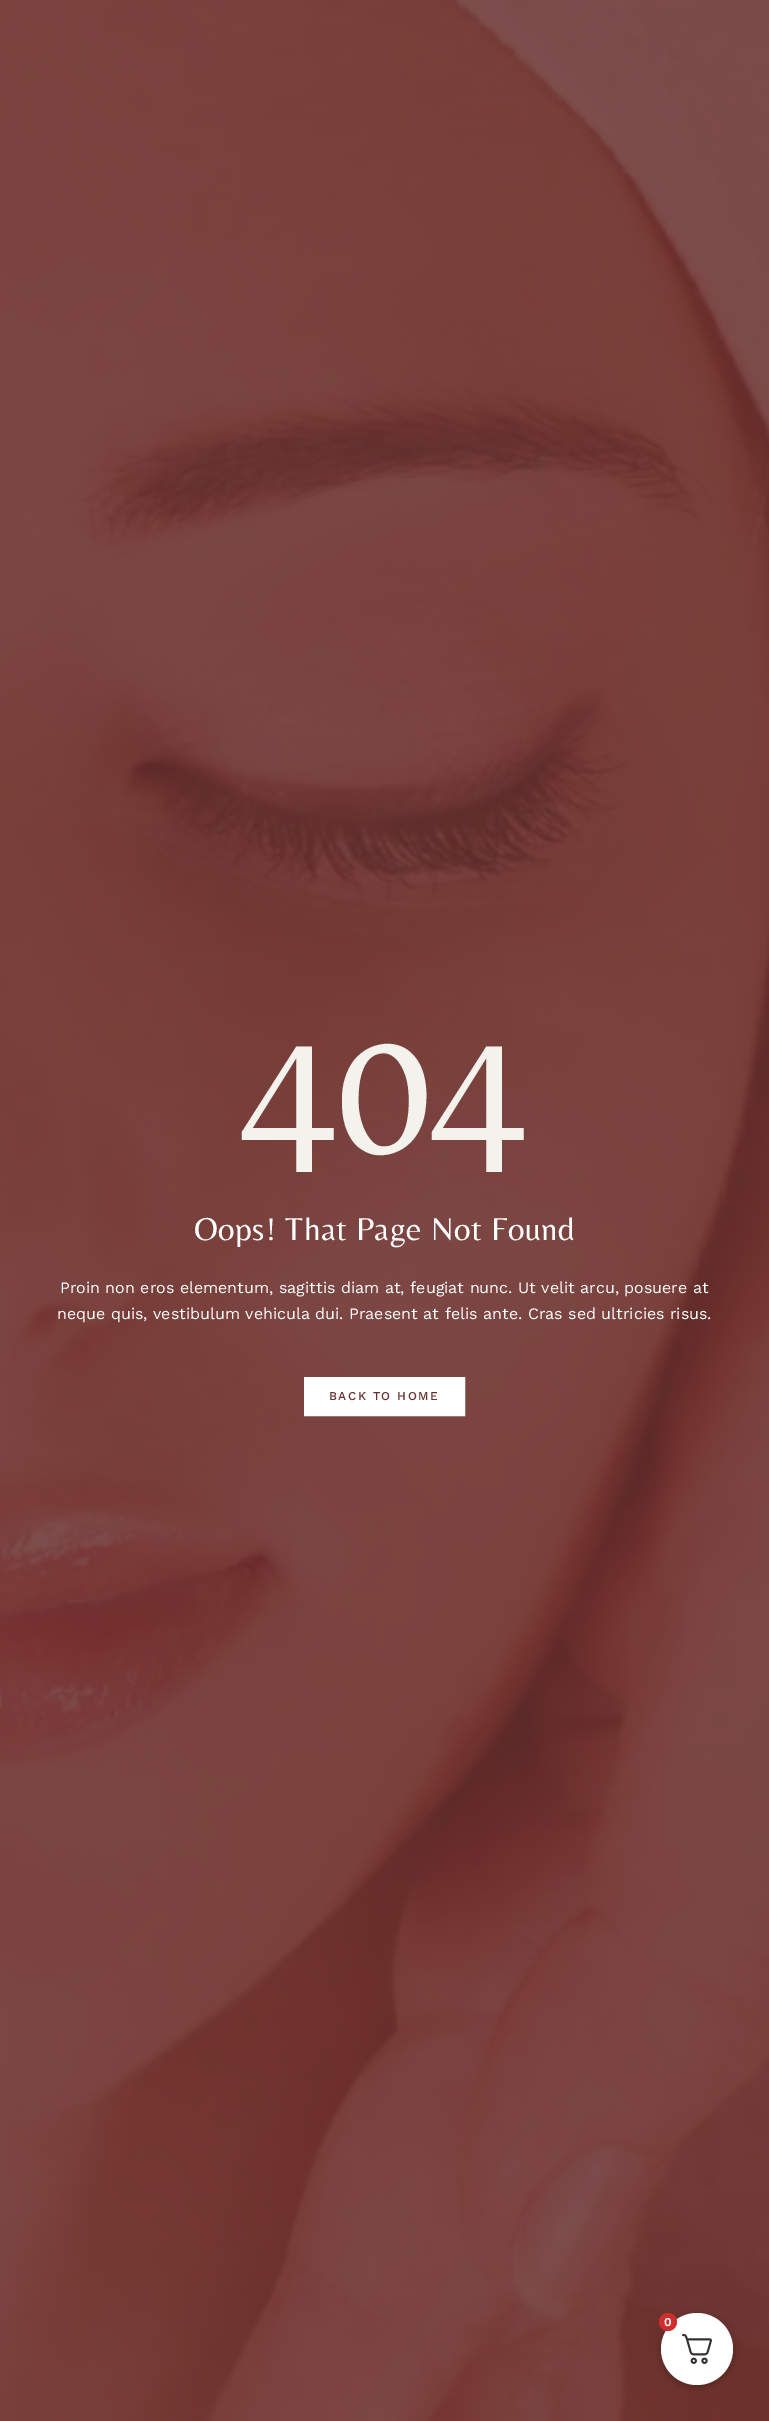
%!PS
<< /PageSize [769 2421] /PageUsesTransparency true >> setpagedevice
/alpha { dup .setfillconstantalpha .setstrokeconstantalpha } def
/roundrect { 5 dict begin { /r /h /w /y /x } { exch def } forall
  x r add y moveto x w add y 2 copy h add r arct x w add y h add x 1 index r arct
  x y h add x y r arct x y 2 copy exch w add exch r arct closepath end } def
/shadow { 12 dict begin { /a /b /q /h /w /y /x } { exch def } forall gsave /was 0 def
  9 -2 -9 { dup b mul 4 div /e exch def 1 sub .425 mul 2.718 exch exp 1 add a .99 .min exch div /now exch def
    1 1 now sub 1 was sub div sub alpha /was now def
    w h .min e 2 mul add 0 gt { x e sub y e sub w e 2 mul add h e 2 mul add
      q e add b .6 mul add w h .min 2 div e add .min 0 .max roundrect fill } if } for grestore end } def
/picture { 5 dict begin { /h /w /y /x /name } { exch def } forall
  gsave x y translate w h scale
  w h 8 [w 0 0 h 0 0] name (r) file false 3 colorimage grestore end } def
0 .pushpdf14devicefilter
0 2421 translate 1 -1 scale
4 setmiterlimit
1 setgray
0 0 769 2421 rectfill
(img1.rgb) 0 0 769 2421 picture
/Belleza-Regular [190 0 0 -190 0 0] selectfont
0.957 0.949 0.929 setrgbcolor
242 1153 moveto (404) show
/Belleza-Regular [33 0 0 -33 0 0] selectfont
1 setgray
194 1240 moveto 0.5 0 (Oops! That Page Not Found) ashow
/WorkSans-Regular [16 0 0 -16 0 0] selectfont
60 1293 moveto (Proin non eros elementum, sagittis diam at, feugiat nunc. Ut velit arcu, posuere at) show
57 1319 moveto (neque quis, vestibulum vehicula dui. Praesent at felis ante. Cras sed ultricies risus.) show
gsave
305 1378 159 37 rectclip
newpath 313 1366 moveto 528 1367 lineto 456 1427 lineto 241 1426 lineto closepath fill
grestore
304.5 1377.5 160 38 rectstroke
/WorkSans-Medium [12 0 0 -12 0 0] selectfont
0.4 0.192 0.188 setrgbcolor
329 1400 moveto 1.5 0 (BACK TO HOME) ashow
0 setgray
661 2315 72 72 36 4 0.25 shadow
1 setgray
newpath 697 2349 36 0 360 arc closepath fill
(img2.rgb) 682 2334 30 30 picture
0.812 0.18 0.18 setrgbcolor
newpath 668 2322 9 0 360 arc closepath fill
/WorkSans-SemiBold [12 0 0 -12 0 0] selectfont
1 setgray
664 2326 moveto (0) show
.poppdf14devicefilter showpage
